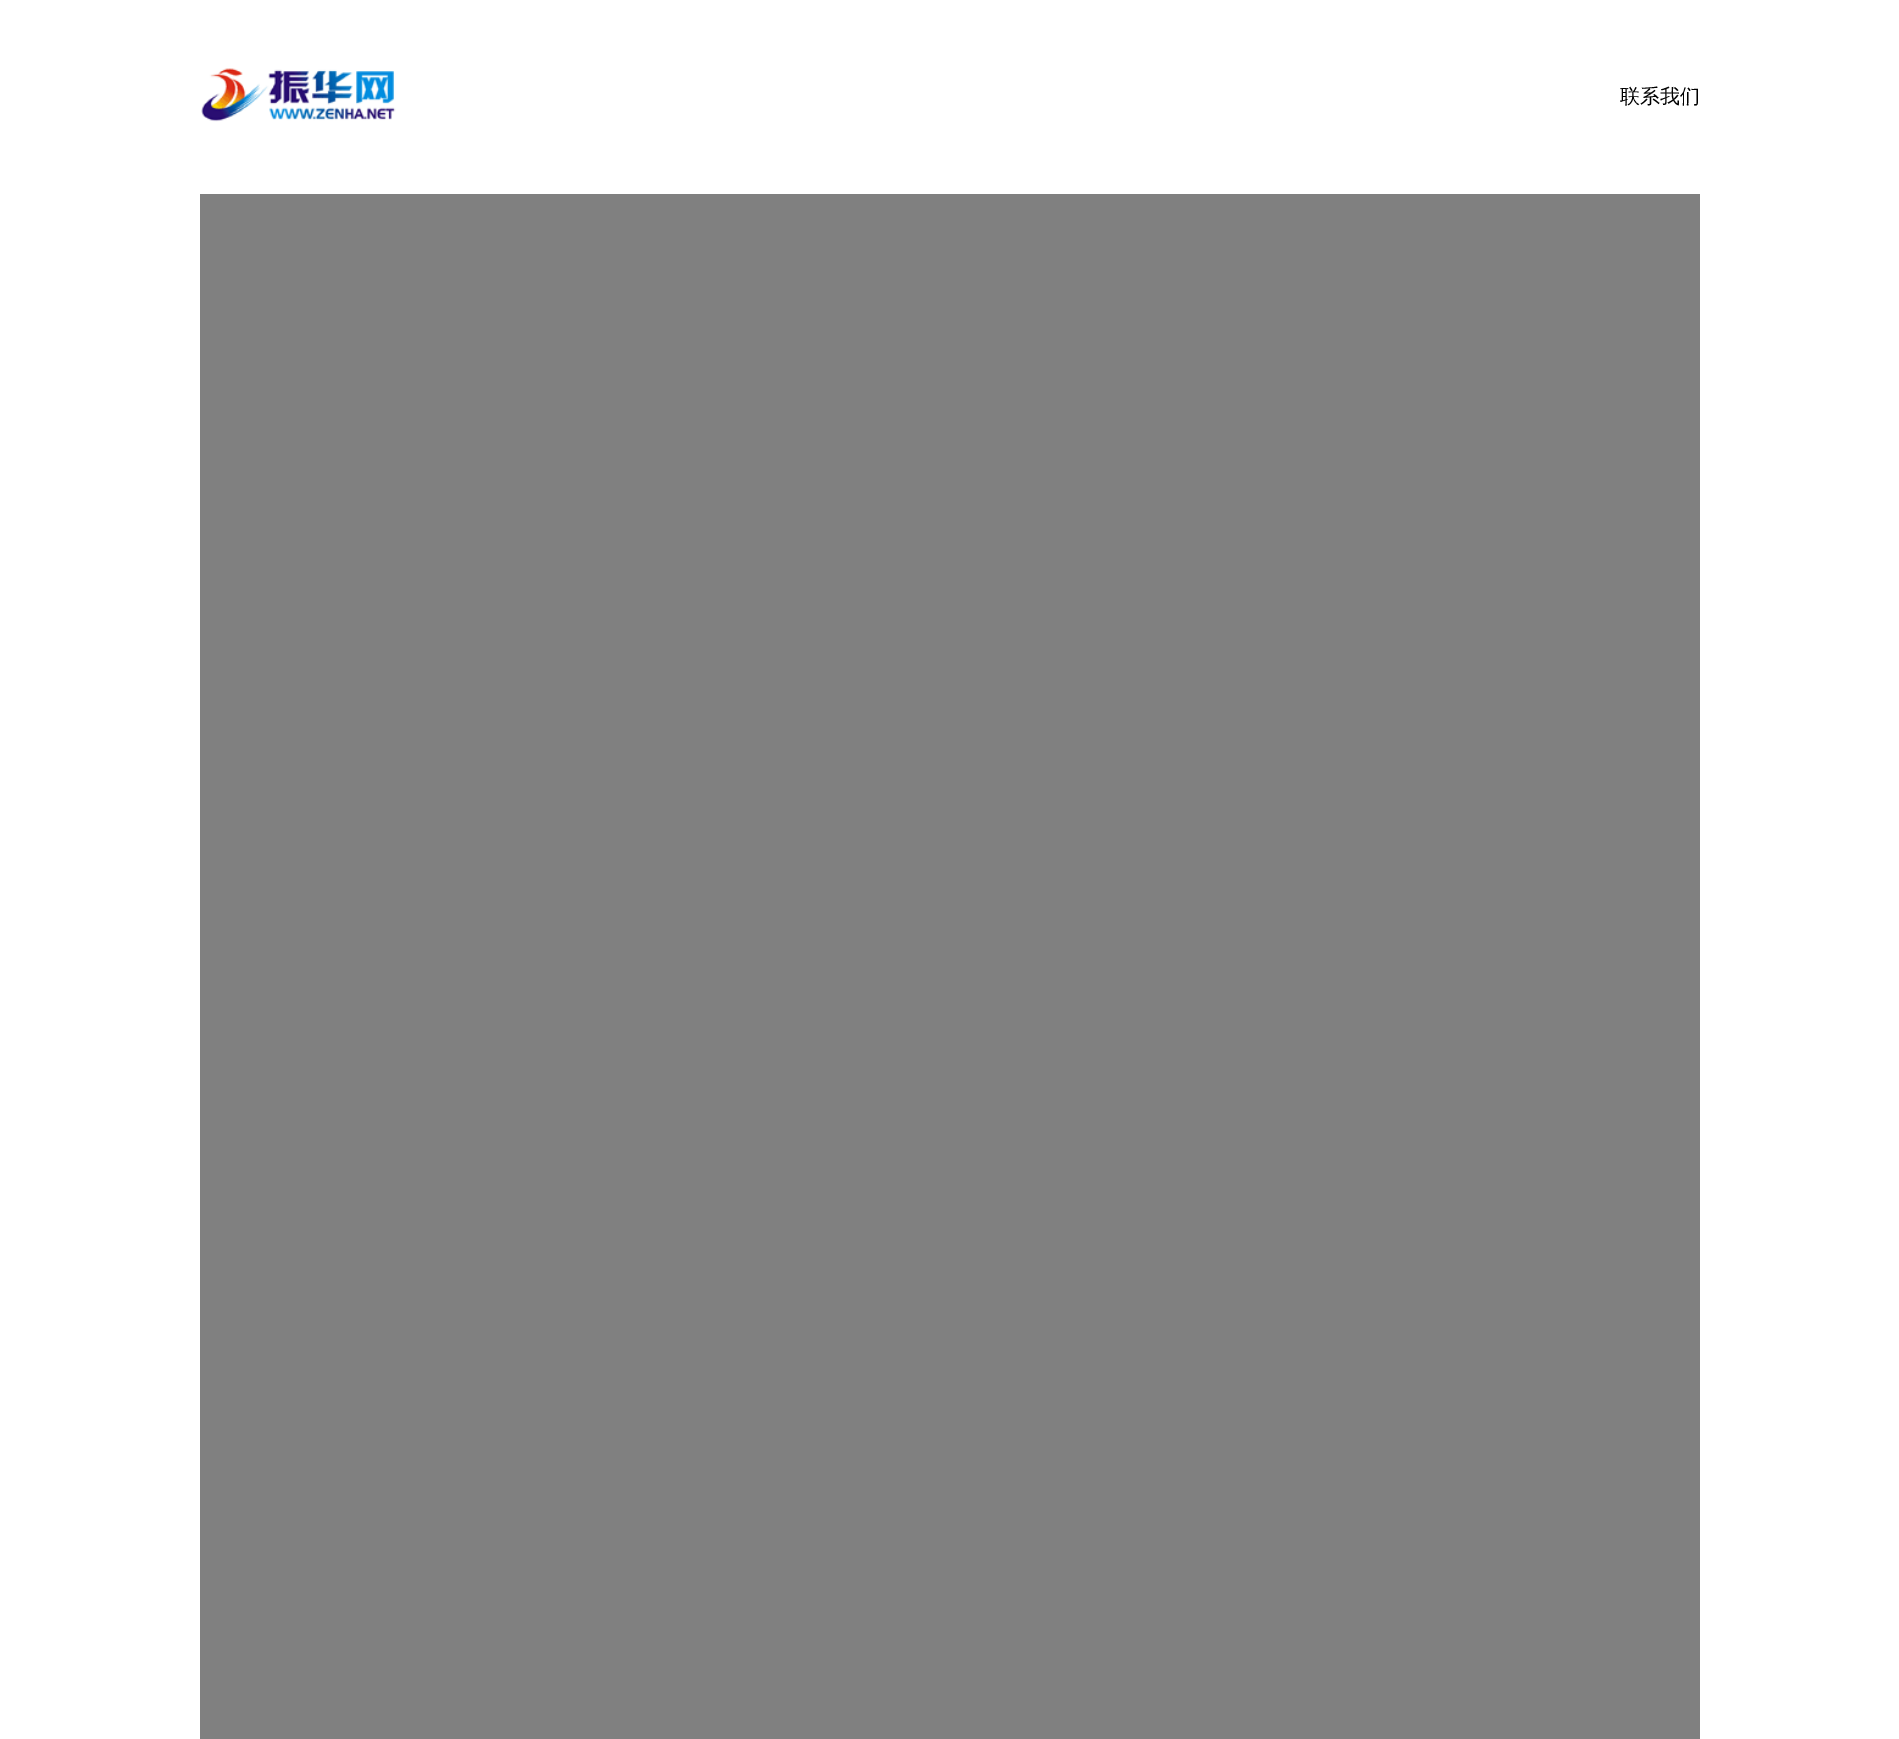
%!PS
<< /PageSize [1899 1739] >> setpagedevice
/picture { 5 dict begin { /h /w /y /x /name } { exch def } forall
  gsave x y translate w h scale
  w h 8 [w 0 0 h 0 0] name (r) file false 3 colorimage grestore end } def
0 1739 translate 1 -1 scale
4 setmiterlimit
1 setgray
0 0 1899 1739 rectfill
(img1.rgb) 201 68 195 54 picture
/WenQuanYiZenHei-Medium [20 0 0 -20 0 0] selectfont
0 setgray
1620 103 moveto (联系我们) show
0.502 setgray
200 194 1500 1545 rectfill
showpage
